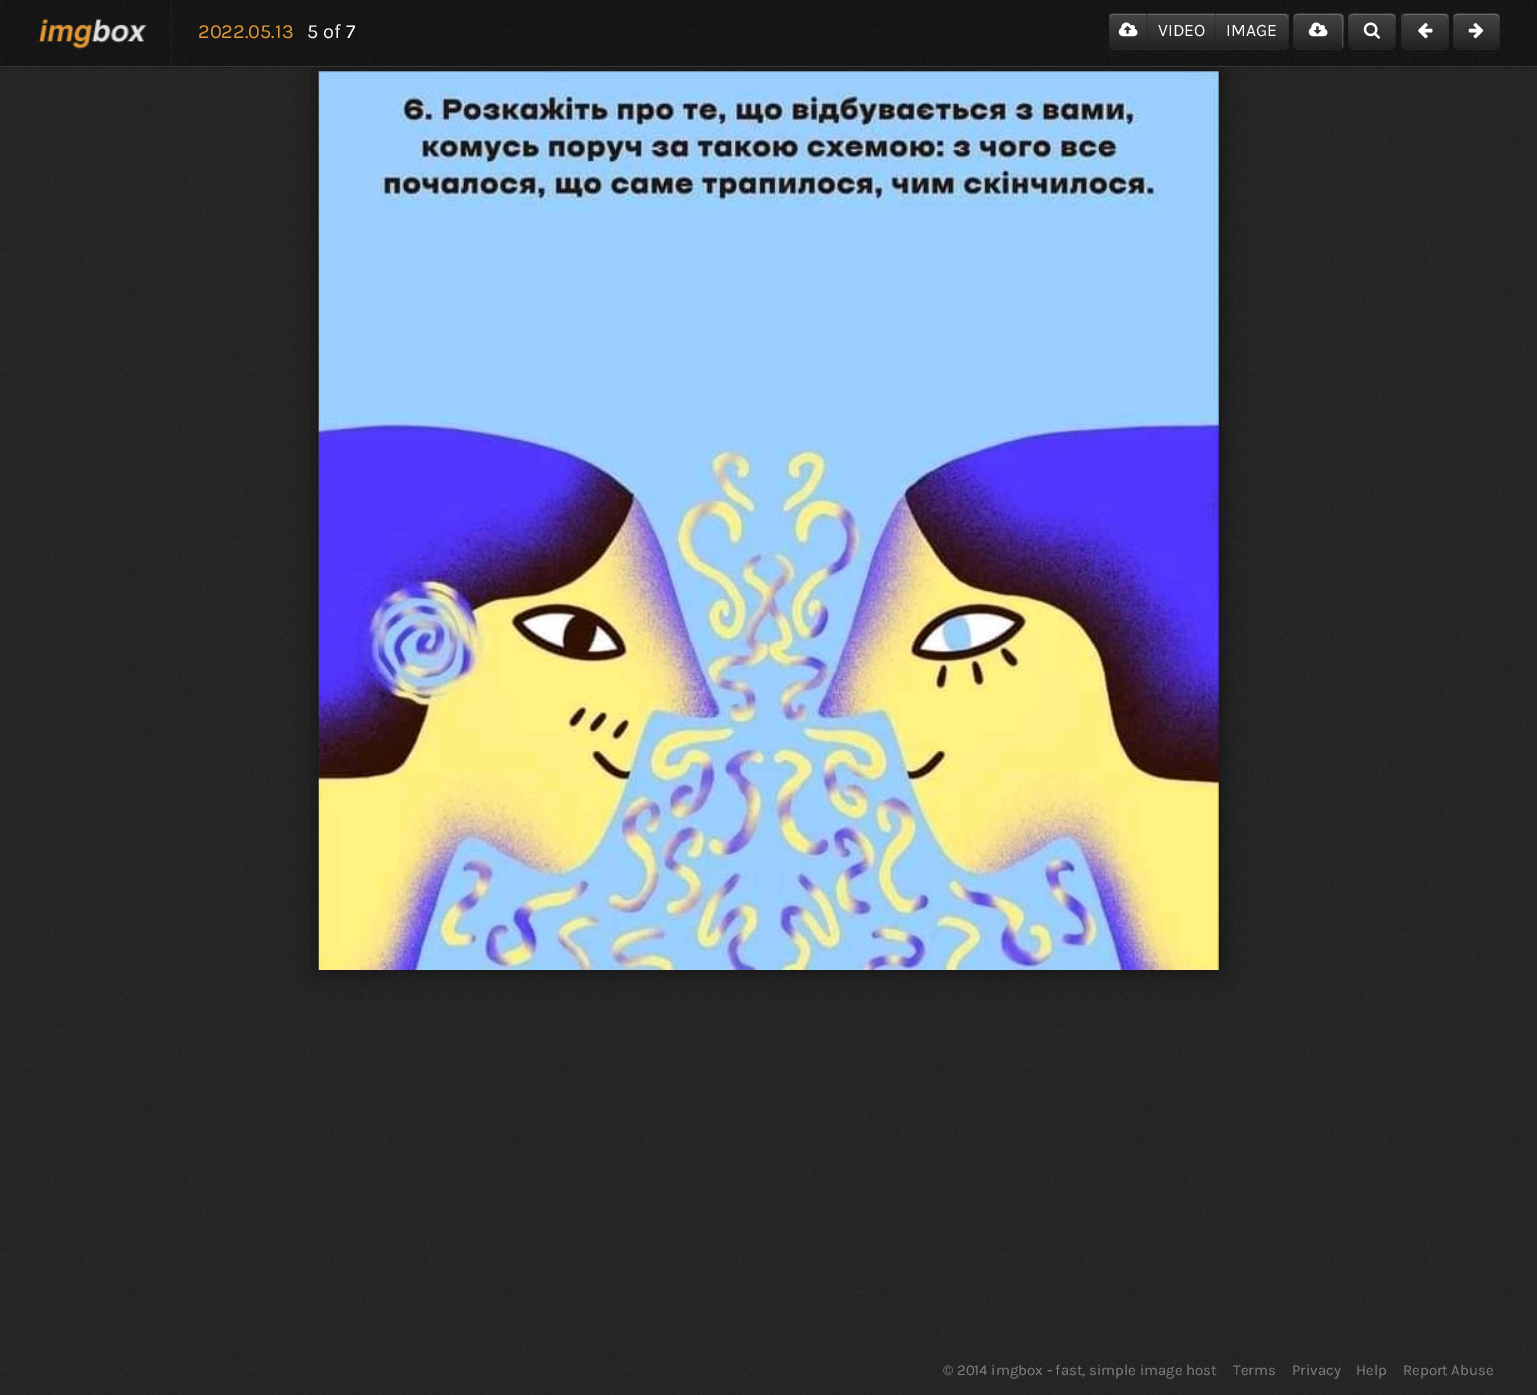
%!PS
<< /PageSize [1537 1395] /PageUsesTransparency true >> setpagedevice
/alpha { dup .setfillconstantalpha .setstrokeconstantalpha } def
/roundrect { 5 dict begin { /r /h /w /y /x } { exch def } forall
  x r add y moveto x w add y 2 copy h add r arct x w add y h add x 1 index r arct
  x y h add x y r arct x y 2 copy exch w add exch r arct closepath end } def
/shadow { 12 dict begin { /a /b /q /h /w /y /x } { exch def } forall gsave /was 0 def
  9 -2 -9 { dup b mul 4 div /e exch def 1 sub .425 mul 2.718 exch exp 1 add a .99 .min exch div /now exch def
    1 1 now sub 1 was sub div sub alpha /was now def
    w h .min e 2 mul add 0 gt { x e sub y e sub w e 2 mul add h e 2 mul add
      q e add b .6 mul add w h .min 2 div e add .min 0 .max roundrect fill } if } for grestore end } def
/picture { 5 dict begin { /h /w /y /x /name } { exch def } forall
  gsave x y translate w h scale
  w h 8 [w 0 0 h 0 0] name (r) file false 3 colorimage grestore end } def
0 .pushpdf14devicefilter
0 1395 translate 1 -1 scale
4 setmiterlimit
0.149 setgray
0 0 1537 1395 rectfill
(img1.rgb) 0 67 1530 1328 picture
0.067 setgray
319 71 900 899 0 12.5 1 shadow
(img2.rgb) 0 0 1537 68 picture
0.216 setgray
0 66 1537 1 rectfill
(img3.rgb) 38 18 109 31 picture
0.125 setgray
171 0 1 66 rectfill
/Karla-Regular [20 0 0 -20 0 0] selectfont
0.89 0.6 0.22 setrgbcolor
198 38 moveto (2022.05.13) show
0.992 0.996 1 setrgbcolor
307 38 moveto (5 of 7) show
0.212 setgray
newpath 1114 13 moveto 1148 13 lineto 1148 50 lineto 1114 50 lineto 1111 50 1109 48 1109 45 curveto 1109 18 lineto 1109 15 1111 13 1114 13 curveto closepath fill
gsave
newpath 1114 13 moveto 1148 13 lineto 1148 50 lineto 1114 50 lineto 1111 50 1109 48 1109 45 curveto 1109 18 lineto 1109 15 1111 13 1114 13 curveto closepath clip newpath
gsave newpath 1109 14 moveto 1146 14 lineto 1146 49 lineto 1109 49 lineto closepath clip newpath
<< /ShadingType 2 /ColorSpace /DeviceRGB /Coords [1128 14 1128 49] /Extend [true true] /Function << /FunctionType 2 /Domain [0 1] /C0 [0.267 0.267 0.267] /C1 [0.133 0.133 0.133] /N 1 >> >> shfill grestore
grestore
0.412 setgray
newpath 1114 15 moveto 1146 15 lineto 1146 14 lineto 1114 14 lineto 1112 14 1110 16 1110 18 curveto 1110 19 lineto 1110 17 1112 15 1114 15 curveto closepath fill
0.1 alpha
0 setgray
newpath 1114 12.5 moveto 1112.5 12.5 1111 13 1110.5 14 curveto 1111 15 lineto 1112 14.5 1113 14 1114 14 curveto 1146 14 lineto 1147.5 12.5 lineto closepath fill
0.25 alpha
newpath 1147.5 50 moveto 1146 48.5 lineto 1146 49 lineto 1114 49 lineto 1112.5 49 1111.5 48.5 1111 47.5 curveto 1110.5 48.5 lineto 1111 49.5 1112.5 50 1114 50 curveto closepath fill
0.1 alpha
newpath 1110.5 14 moveto 1109.5 15 1109 16 1109 17.5 curveto 1109 45 lineto 1109 46.5 1109.5 47.5 1110.5 48.5 curveto 1111 47.5 lineto 1110.5 47 1110 46 1110 45 curveto 1110 17.5 lineto 1110 16.5 1110.5 15.5 1111 15 curveto closepath fill
1 alpha
(img4.rgb) 1118 22 20 15 picture
0.212 setgray
1146 13 69 37 rectfill
gsave newpath 1146 14 moveto 1215 14 lineto 1215 49 lineto 1146 49 lineto closepath clip newpath
<< /ShadingType 2 /ColorSpace /DeviceRGB /Coords [1181 14 1181 49] /Extend [true true] /Function << /FunctionType 2 /Domain [0 1] /C0 [0.267 0.267 0.267] /C1 [0.133 0.133 0.133] /N 1 >> >> shfill grestore
0.412 setgray
1148 14 67 1 rectfill
0.1 alpha
0 setgray
newpath 1146 12 moveto 1216 12 lineto 1215 14 lineto 1148 14 lineto closepath fill
0.25 alpha
newpath 1216 50 moveto 1146 50 lineto 1148 49 lineto 1215 49 lineto closepath fill
0.1 alpha
newpath 1146 50 moveto 1146 12.5 lineto 1147.5 14 lineto 1147.5 49 lineto closepath fill
/Karla-Regular [17.5 0 0 -17.5 0 0] selectfont
1 alpha
0.992 0.996 1 setrgbcolor
1158 36 moveto (VIDEO) show
0.212 setgray
newpath 1215 13 moveto 1284 13 lineto 1287 13 1289 15 1289 18 curveto 1289 45 lineto 1289 48 1287 50 1284 50 curveto 1215 50 lineto closepath fill
gsave
newpath 1215 13 moveto 1284 13 lineto 1287 13 1289 15 1289 18 curveto 1289 45 lineto 1289 48 1287 50 1284 50 curveto 1215 50 lineto closepath clip newpath
gsave newpath 1215 14 moveto 1289 14 lineto 1289 49 lineto 1215 49 lineto closepath clip newpath
<< /ShadingType 2 /ColorSpace /DeviceRGB /Coords [1252 14 1252 49] /Extend [true true] /Function << /FunctionType 2 /Domain [0 1] /C0 [0.267 0.267 0.267] /C1 [0.133 0.133 0.133] /N 1 >> >> shfill grestore
grestore
0.412 setgray
newpath 1216 15 moveto 1284 15 lineto 1286 15 1288 17 1288 19 curveto 1288 18 lineto 1288 16 1286 14 1284 14 curveto 1216 14 lineto closepath fill
0.1 alpha
0 setgray
newpath 1215 12 moveto 1286 12 lineto 1288 14 lineto 1287 15 lineto 1284 14 lineto 1216 14 lineto closepath fill
newpath 1289 46.5 moveto 1287.5 48.5 lineto 1286.5 48 lineto 1287.5 47 1288 46 1288 45 curveto 1288 18 lineto 1288 16.5 1287.5 15.5 1286.5 14.5 curveto 1287.5 13.5 lineto 1289 16 lineto closepath fill
0.25 alpha
newpath 1284 50 moveto 1285 50 1287 50 1287 49 curveto 1287 48 lineto 1284 49 lineto 1216 49 lineto 1215 50 lineto closepath fill
0.1 alpha
newpath 1216 14 moveto 1216.5 14 lineto 1215 12.5 lineto 1215 50 lineto 1216 49 lineto closepath fill
1 alpha
0.992 0.996 1 setrgbcolor
1226 36 moveto (IMAGE) show
0.212 setgray
1293 13 51 37 5 roundrect fill
gsave
1293 13 51 37 5 roundrect clip newpath
gsave newpath 1293 14 moveto 1344 14 lineto 1344 49 lineto 1293 49 lineto closepath clip newpath
<< /ShadingType 2 /ColorSpace /DeviceRGB /Coords [1318 14 1318 49] /Extend [true true] /Function << /FunctionType 2 /Domain [0 1] /C0 [0.267 0.267 0.267] /C1 [0.133 0.133 0.133] /N 1 >> >> shfill grestore
grestore
0.2 alpha
1 setgray
newpath 1298 15 moveto 1325 15 lineto 1343 15 1342 12 1342 28 curveto 1342 48 lineto 1344 46 1343 43 1343 40 curveto 1343 32 lineto 1343 11 1346 14 1325 14 curveto 1305 14 lineto 1300 14 1294 13 1294 19 curveto 1294 17 1295 15 1298 15 curveto closepath fill
0.25 alpha
0 setgray
1.2 setlinewidth
newpath 1342 48 moveto 1341 49 1340 49.5 1339 49.5 curveto 1297.5 49.5 lineto 1296.5 49.5 1295 49 1294.5 48 curveto stroke
0.1 alpha
newpath 1294.5 48 moveto 1293.5 47.5 1293 46 1293 45 curveto 1293 17.5 lineto 1293 16.5 1293.5 15 1294.5 14.5 curveto 1295 13.5 1296.5 13 1297.5 13 curveto 1339 13 lineto 1340 13 1341 13.5 1342 14.5 curveto 1342.5 15 1343 16.5 1343 17.5 curveto 1343 45 lineto 1343 46 1342.5 47.5 1342 48 curveto stroke
1 alpha
(img5.rgb) 1308 22 20 15 picture
0.212 setgray
1348 13 48 37 5 roundrect fill
gsave
1348 13 48 37 5 roundrect clip newpath
gsave newpath 1348 14 moveto 1396 14 lineto 1396 49 lineto 1348 49 lineto closepath clip newpath
<< /ShadingType 2 /ColorSpace /DeviceRGB /Coords [1372 14 1372 49] /Extend [true true] /Function << /FunctionType 2 /Domain [0 1] /C0 [0.267 0.267 0.267] /C1 [0.133 0.133 0.133] /N 1 >> >> shfill grestore
grestore
0.412 setgray
newpath 1352 15 moveto 1391 15 lineto 1393 15 1395 17 1395 19 curveto 1395 13 1389 14 1385 14 curveto 1359 14 lineto 1355 14 1349 13 1349 19 curveto 1349 17 1350 15 1352 15 curveto closepath fill
0.25 alpha
0 setgray
newpath 1394.5 48 moveto 1393.5 49 1392.5 49.5 1391 49.5 curveto 1352.5 49.5 lineto 1351.5 49.5 1350 49 1349.5 48 curveto stroke
0.1 alpha
newpath 1349.5 48 moveto 1348.5 47.5 1348 46 1348 45 curveto 1348 17.5 lineto 1348 16.5 1348.5 15 1349.5 14.5 curveto 1350 13.5 1351.5 13 1352.5 13 curveto 1391 13 lineto 1392.5 13 1393.5 13.5 1394.5 14.5 curveto 1395 15 1395.5 16.5 1395.5 17.5 curveto 1395.5 45 lineto 1395.5 46 1395 47.5 1394.5 48 curveto stroke
1 alpha
(img6.rgb) 1363 22 17 17 picture
0.212 setgray
1401 13 48 37 5 roundrect fill
gsave
1401 13 48 37 5 roundrect clip newpath
gsave newpath 1401 14 moveto 1449 14 lineto 1449 49 lineto 1401 49 lineto closepath clip newpath
<< /ShadingType 2 /ColorSpace /DeviceRGB /Coords [1425 14 1425 49] /Extend [true true] /Function << /FunctionType 2 /Domain [0 1] /C0 [0.267 0.267 0.267] /C1 [0.133 0.133 0.133] /N 1 >> >> shfill grestore
grestore
0.412 setgray
newpath 1406 15 moveto 1444 15 lineto 1446 15 1448 17 1448 19 curveto 1448 18 lineto 1448 16 1446 14 1444 14 curveto 1407 14 lineto 1406 14 1404 15 1404 16 curveto closepath fill
0.25 alpha
0 setgray
newpath 1447 48 moveto 1446 49 1445 49.5 1444 49.5 curveto 1406 49.5 lineto 1405 49.5 1404 49 1403 48 curveto stroke
0.1 alpha
newpath 1403 48 moveto 1401 46 1402 43 1402 40.5 curveto 1402 31 lineto 1402 8.5 1400 13 1425 13 curveto 1450 13 1448 8.5 1448 31 curveto 1448 40.5 lineto 1448 43 1449 46 1447 48 curveto stroke
1 alpha
(img7.rgb) 1418 23 15 16 picture
0.212 setgray
1453 13 47 37 5 roundrect fill
gsave
1453 13 47 37 5 roundrect clip newpath
gsave newpath 1453 14 moveto 1500 14 lineto 1500 49 lineto 1453 49 lineto closepath clip newpath
<< /ShadingType 2 /ColorSpace /DeviceRGB /Coords [1476 14 1476 49] /Extend [true true] /Function << /FunctionType 2 /Domain [0 1] /C0 [0.267 0.267 0.267] /C1 [0.133 0.133 0.133] /N 1 >> >> shfill grestore
grestore
0.412 setgray
newpath 1458 15 moveto 1495 15 lineto 1497 15 1499 17 1499 19 curveto 1499 13 1494 14 1489 14 curveto 1464 14 lineto 1459 14 1454 13 1454 19 curveto 1454 17 1455 15 1458 15 curveto closepath fill
0.25 alpha
0 setgray
newpath 1498 48 moveto 1497.5 49 1496 49.5 1495 49.5 curveto 1457.5 49.5 lineto 1456.5 49.5 1455 49 1454.5 48 curveto stroke
0.1 alpha
newpath 1454.5 48 moveto 1452.5 46 1453 43 1453 40.5 curveto 1453 31 lineto 1453 8.5 1451.5 13 1476 13 curveto 1501 13 1499.5 8.5 1499.5 31 curveto 1499.5 40.5 lineto 1499.5 43 1500 46 1498 48 curveto stroke
1 alpha
(img8.rgb) 1468 23 16 16 picture
(img9.rgb) 318 71 901 899 picture
/Karla-Regular [15 0 0 -15 0 0] selectfont
0.502 setgray
943 1375 moveto (© 2014 imgbox - fast, simple image host) show
1233 1375 moveto (Terms) show
1292 1375 moveto (Privacy) show
1356 1375 moveto (Help) show
1403 1375 moveto (Report Abuse) show
.poppdf14devicefilter showpage
